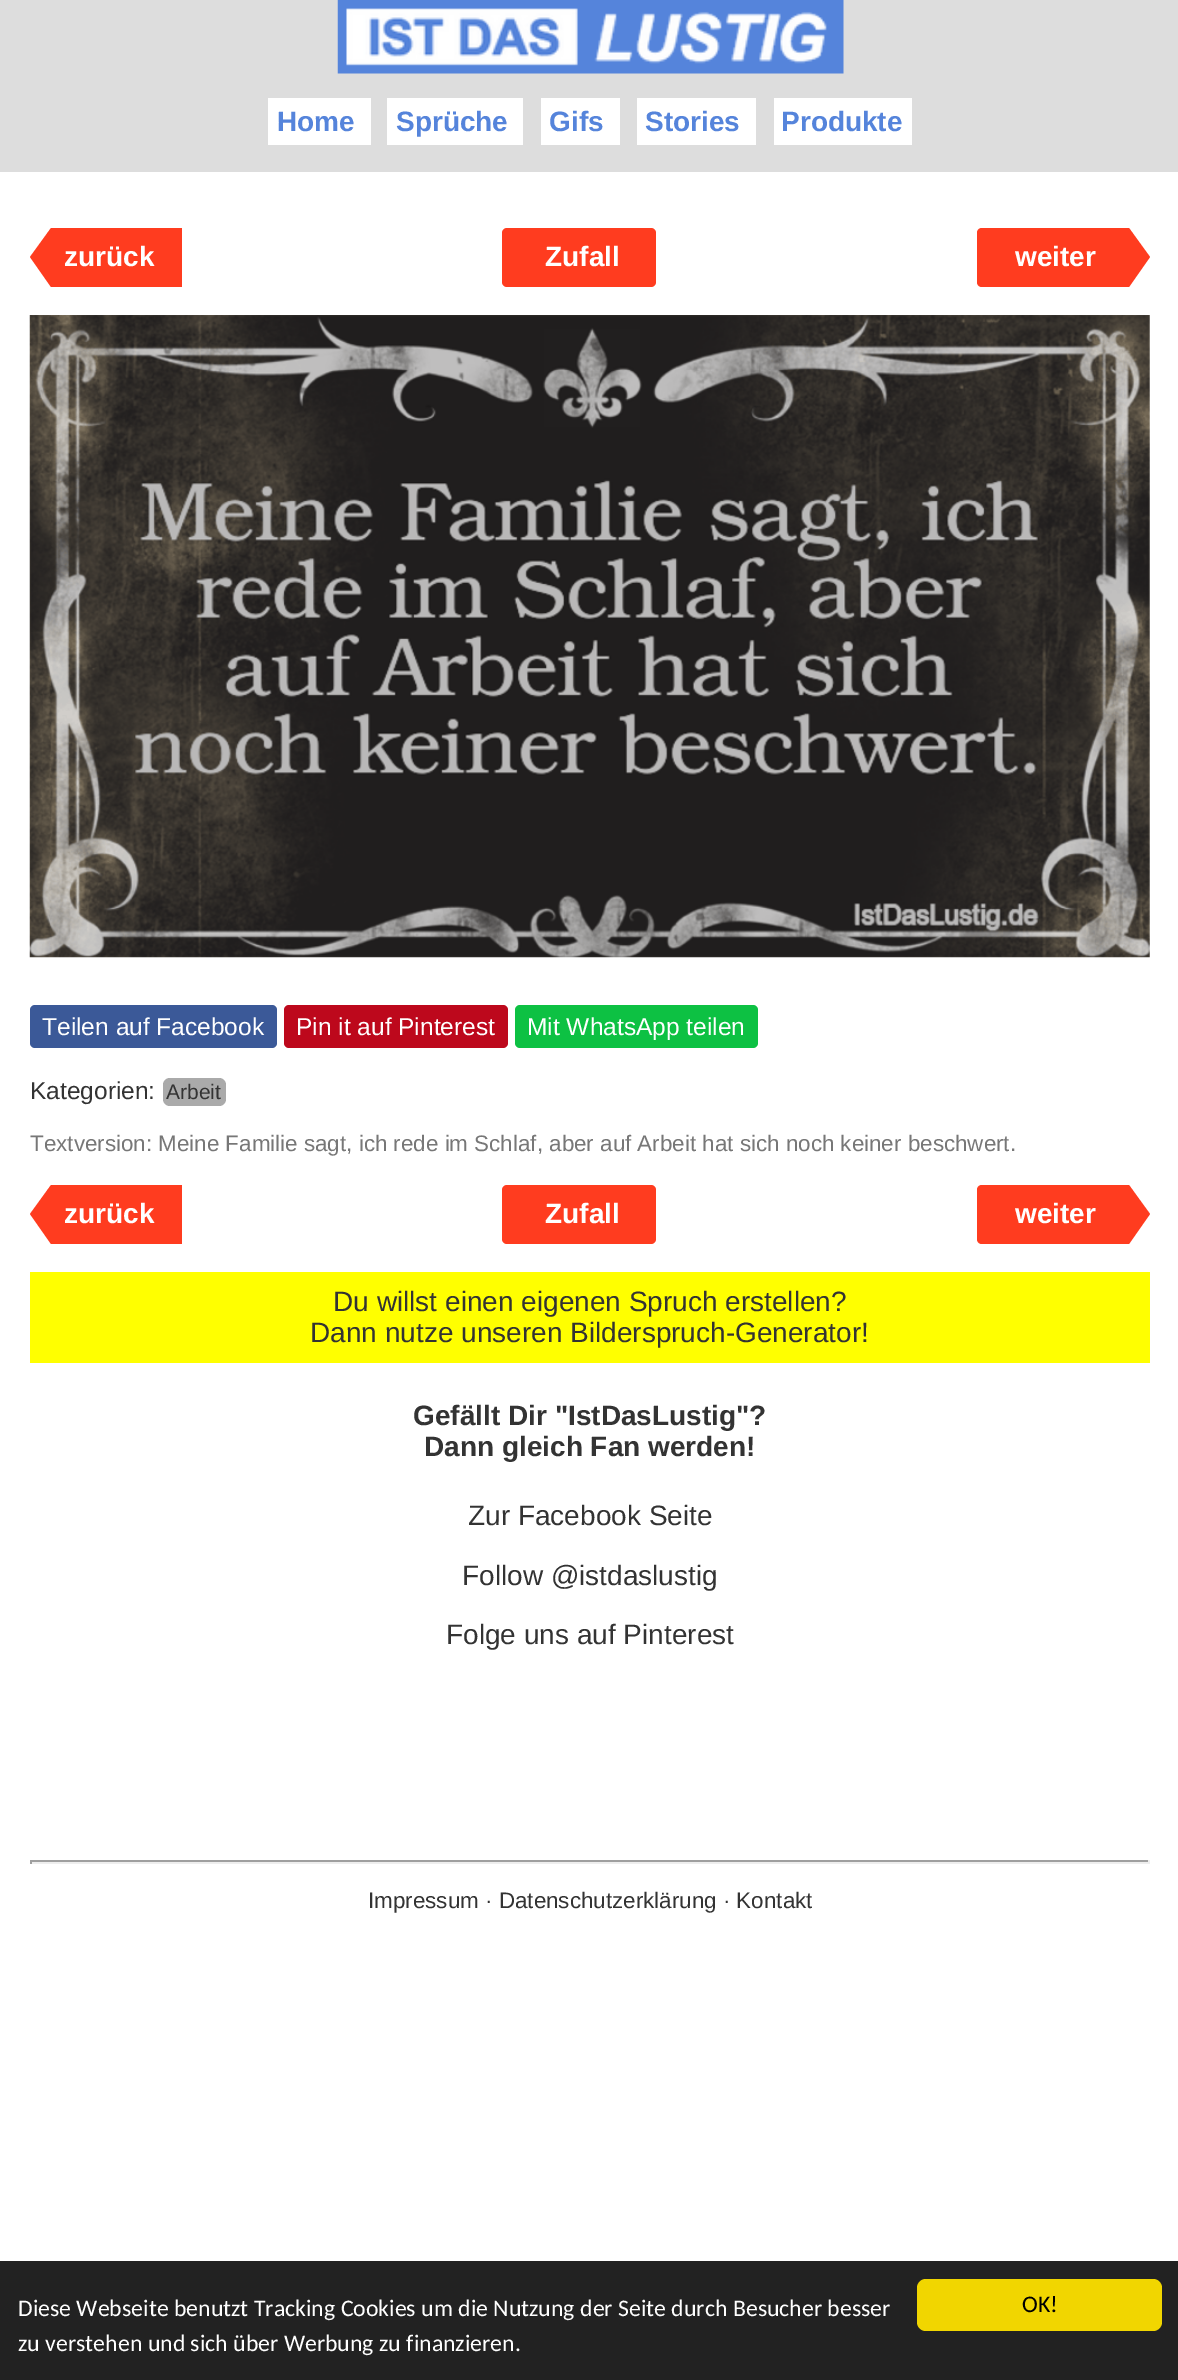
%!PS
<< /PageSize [1178 2380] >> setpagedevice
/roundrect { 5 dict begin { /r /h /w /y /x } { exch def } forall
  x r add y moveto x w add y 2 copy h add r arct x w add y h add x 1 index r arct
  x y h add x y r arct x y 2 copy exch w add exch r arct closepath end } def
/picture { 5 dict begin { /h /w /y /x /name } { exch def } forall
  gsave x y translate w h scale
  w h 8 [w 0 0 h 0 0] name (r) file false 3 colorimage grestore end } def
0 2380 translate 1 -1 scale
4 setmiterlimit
1 setgray
0 0 1178 2380 rectfill
0.867 setgray
0 0 1178 172 rectfill
(img1.rgb) 337 0 507 74 picture
1 setgray
268 98 103 47 rectfill
/LiberationSans-Bold [28 0 0 -28 0 0] selectfont
0.333 0.518 0.859 setrgbcolor
277 131 moveto (Home) show
1 setgray
387 98 136 47 rectfill
0.333 0.518 0.859 setrgbcolor
396 131 moveto (Sprüche) show
1 setgray
541 98 79 47 rectfill
0.333 0.518 0.859 setrgbcolor
549 131 moveto (Gifs) show
1 setgray
637 98 119 47 rectfill
0.333 0.518 0.859 setrgbcolor
645 131 moveto (Stories) show
1 setgray
774 98 138 47 rectfill
0.333 0.518 0.859 setrgbcolor
781 131 moveto (Produkte) show
1 0.235 0.122 setrgbcolor
newpath 51 228 moveto 51 287 lineto 30 257 lineto closepath fill
51 228 131 59 rectfill
1 setgray
64 266 moveto (zurück) show
1 0.235 0.122 setrgbcolor
502 228 154 59 5 roundrect fill
1 setgray
545 266 moveto (Zufall) show
1 0.235 0.122 setrgbcolor
newpath 982 228 moveto 1129 228 lineto 1129 287 lineto 982 287 lineto 979 287 977 285 977 282 curveto 977 233 lineto 977 230 979 228 982 228 curveto closepath fill
1 setgray
1015 266 moveto (weiter) show
1 0.235 0.122 setrgbcolor
newpath 1129 287 moveto 1129 228 lineto 1150 257 lineto closepath fill
(img2.rgb) 29 315 1121 643 picture
0.231 0.349 0.596 setrgbcolor
30 1005 247 43 5 roundrect fill
/LiberationSans-Regular [24.5 0 0 -24.5 0 0] selectfont
1 setgray
42 1035 moveto (Teilen auf Facebook) show
0.741 0.031 0.11 setrgbcolor
284 1005 224 43 5 roundrect fill
1 setgray
296 1035 moveto (Pin it auf Pinterest) show
0.051 0.757 0.263 setrgbcolor
515 1005 243 43 5 roundrect fill
1 setgray
527 1035 moveto (Mit WhatsApp teilen) show
0.2 setgray
30 1099 moveto (Kategorien:) show
0.667 setgray
163 1078 63 28 7 roundrect fill
/LiberationSans-Regular [21 0 0 -21 0 0] selectfont
0.2 setgray
166 1099 moveto (Arbeit) show
/LiberationSans-Regular [22.4 0 0 -22.4 0 0] selectfont
0.467 setgray
30 1151 moveto (Textversion: Meine Familie sagt, ich rede im Schlaf, aber auf Arbeit hat sich noch keiner beschwert.) show
1 0.235 0.122 setrgbcolor
newpath 51 1185 moveto 51 1244 lineto 30 1214 lineto closepath fill
51 1185 131 59 rectfill
/LiberationSans-Bold [28 0 0 -28 0 0] selectfont
1 setgray
64 1223 moveto (zurück) show
1 0.235 0.122 setrgbcolor
502 1185 154 59 5 roundrect fill
1 setgray
545 1223 moveto (Zufall) show
1 0.235 0.122 setrgbcolor
newpath 982 1185 moveto 1129 1185 lineto 1129 1244 lineto 982 1244 lineto 979 1244 977 1242 977 1239 curveto 977 1190 lineto 977 1187 979 1185 982 1185 curveto closepath fill
1 setgray
1015 1223 moveto (weiter) show
1 0.235 0.122 setrgbcolor
newpath 1129 1244 moveto 1129 1185 lineto 1150 1214 lineto closepath fill
1 1 0 setrgbcolor
30 1272 1120 91 rectfill
/LiberationSans-Regular [28 0 0 -28 0 0] selectfont
0.2 setgray
333 1311 moveto (Du willst einen eigenen Spruch erstellen?) show
310 1342 moveto (Dann nutze unseren Bilderspruch-Generator!) show
/LiberationSans-Bold [28 0 0 -28 0 0] selectfont
413 1425 moveto (Gefällt Dir "IstDasLustig"?) show
424 1456 moveto (Dann gleich Fan werden!) show
/LiberationSans-Regular [28 0 0 -28 0 0] selectfont
468 1525 moveto (Zur Facebook Seite) show
462 1585 moveto (Follow @istdaslustig) show
446 1644 moveto (Folge uns auf Pinterest) show
0.624 setgray
30 1860 1120 2 rectfill
0.933 setgray
1148 1860 2 4 rectfill
30 1862 1120 2 rectfill
0.624 setgray
30 1860 2 4 rectfill
/LiberationSans-Regular [22.4 0 0 -22.4 0 0] selectfont
0.2 setgray
368 1908 moveto (Impressum · Datenschutzerklärung · Kontakt) show
0.133 setgray
0 2261 1178 119 rectfill
/Carlito-Regular [23.8 0 0 -23.8 0 0] selectfont
1 setgray
18 2316 moveto (Diese Webseite benutzt Tracking Cookies um die Nutzung der Seite durch Besucher besser) show
18 2351 moveto (zu verstehen und sich über Werbung zu finanzieren.) show
0.945 0.839 0 setrgbcolor
917 2279 245 52 9 roundrect fill
0 setgray
1022 2312 moveto (OK!) show
showpage
